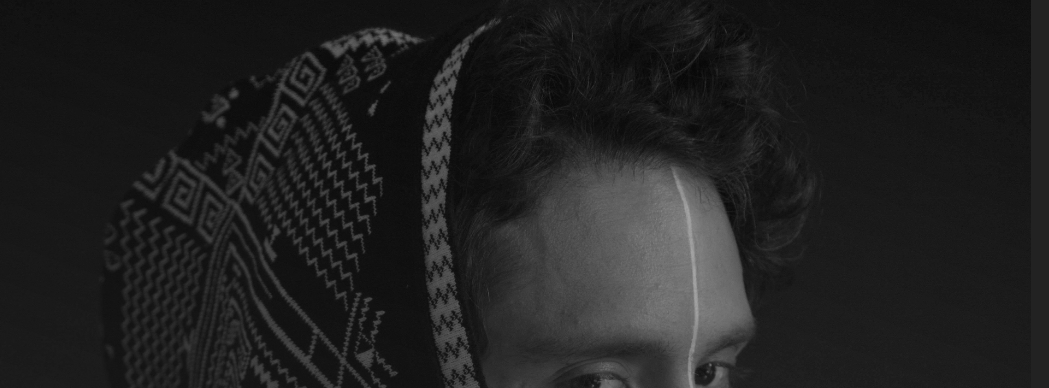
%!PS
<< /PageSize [1049 388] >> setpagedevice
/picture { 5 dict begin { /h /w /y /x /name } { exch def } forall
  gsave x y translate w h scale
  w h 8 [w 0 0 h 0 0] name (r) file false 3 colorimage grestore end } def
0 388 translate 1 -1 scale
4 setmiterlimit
0.133 setgray
0 0 1049 388 rectfill
(img1.rgb) 0 0 1031 388 picture
showpage
